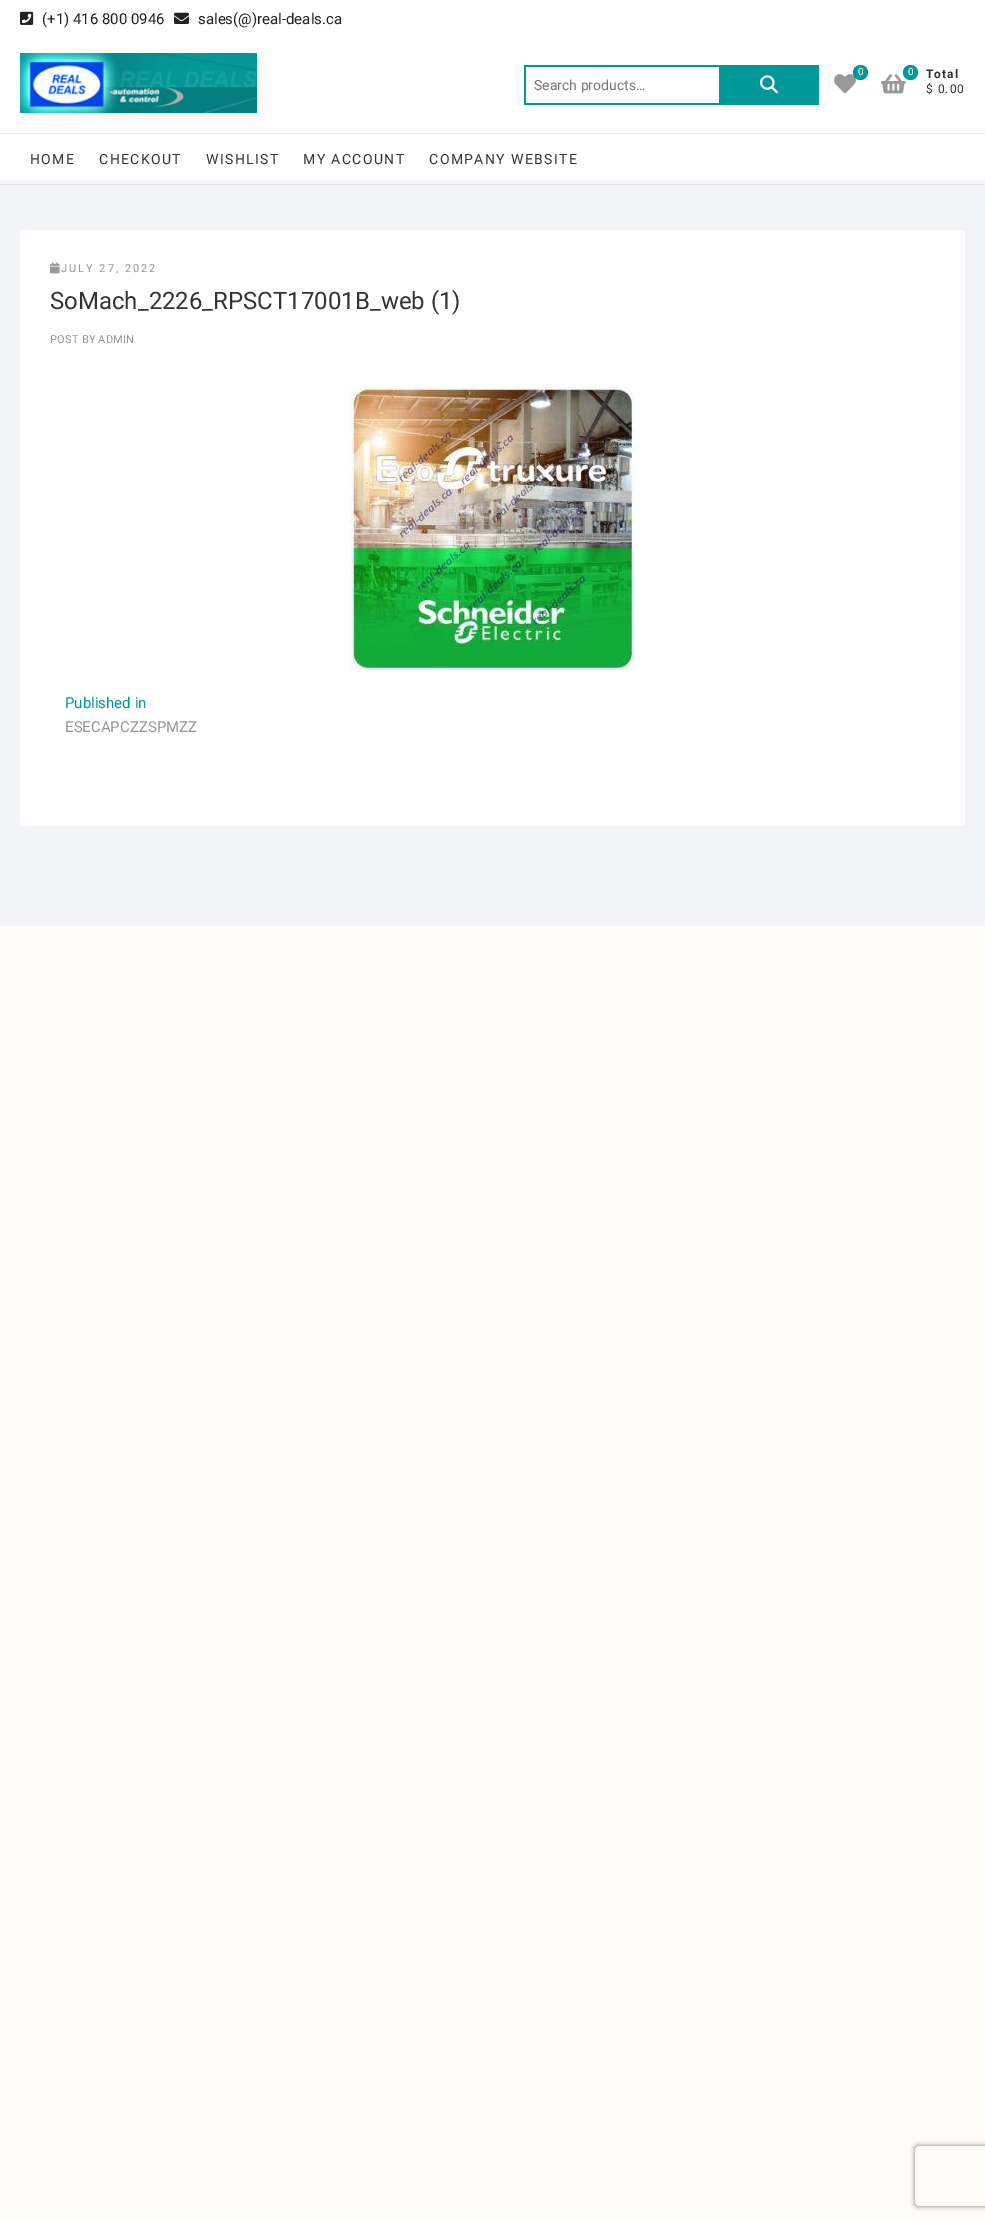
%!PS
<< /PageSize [985 2220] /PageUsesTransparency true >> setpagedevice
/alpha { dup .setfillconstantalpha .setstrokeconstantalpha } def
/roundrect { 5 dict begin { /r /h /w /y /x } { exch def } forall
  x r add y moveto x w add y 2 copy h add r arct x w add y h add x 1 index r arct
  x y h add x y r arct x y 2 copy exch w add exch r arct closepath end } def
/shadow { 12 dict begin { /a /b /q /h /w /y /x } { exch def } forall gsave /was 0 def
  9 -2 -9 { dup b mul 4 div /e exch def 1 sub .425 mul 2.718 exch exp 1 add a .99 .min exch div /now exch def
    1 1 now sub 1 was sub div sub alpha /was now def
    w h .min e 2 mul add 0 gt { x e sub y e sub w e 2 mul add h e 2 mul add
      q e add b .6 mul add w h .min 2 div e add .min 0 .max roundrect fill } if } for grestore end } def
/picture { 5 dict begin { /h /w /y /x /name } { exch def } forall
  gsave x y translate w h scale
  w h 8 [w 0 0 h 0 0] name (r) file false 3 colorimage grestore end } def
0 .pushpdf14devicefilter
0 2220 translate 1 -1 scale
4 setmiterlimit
1 0.984 0.984 setrgbcolor
0 0 985 2220 rectfill
0.953 0.957 0.973 setrgbcolor
0 180 985 746 rectfill
1 setgray
0 0 985 180 rectfill
(img1.rgb) 20 11 14 14 picture
/Roboto-Regular [15 0 0 -15 0 0] selectfont
0.133 setgray
42 24 moveto (\(+1\) 416 800 0946) show
(img2.rgb) 174 12 15 12 picture
198 24 moveto (sales\(@\)real-deals.ca) show
(img3.rgb) 20 53 237 60 picture
0 0.596 0.6 setrgbcolor
524 65 195 2 rectfill
524 103 195 2 rectfill
524 65 2 40 rectfill
/Roboto-Regular [14 0 0 -14 0 0] selectfont
0.459 setgray
534 90 moveto (Search products…) show
0 0.596 0.6 setrgbcolor
719 65 100 40 rectfill
(img4.rgb) 760 75 18 19 picture
(img5.rgb) 834 74 22 20 picture
newpath 860.5 72.5 7.5 0 360 arc closepath fill
/Roboto-Regular [10 0 0 -10 0 0] selectfont
1 setgray
858 75 moveto (0) show
(img6.rgb) 881 74 25 20 picture
0 0.596 0.6 setrgbcolor
newpath 910.5 72.5 7.5 0 360 arc closepath fill
1 setgray
908 75 moveto (0) show
/Roboto-Bold [12 0 0 -12 0 0] selectfont
0.2 setgray
926 78 moveto 1 0 (Total) ashow
/Roboto-Regular [12 0 0 -12 0 0] selectfont
926 93 moveto 1 0 ($ 0.00) ashow
0.922 setgray
0 133 985 1 rectfill
0.878 0.878 0.894 setrgbcolor
0 184 985 1 rectfill
/Roboto-Regular [14 0 0 -14 0 0] selectfont
0.2 setgray
30 164 moveto 1.4 0 (HOME) ashow
99 164 moveto 1.4 0 (CHECKOUT) ashow
206 164 moveto 1.4 0 (WISHLIST) ashow
303 164 moveto 1.4 0 (MY ACCOUNT) ashow
429 164 moveto 1.4 0 (COMPANY WEBSITE) ashow
1 setgray
20 230 945 596 rectfill
(img7.rgb) 50 262 10 12 picture
/Roboto-Regular [11 0 0 -11 0 0] selectfont
0.58 setgray
61 272 moveto 2 0 (JULY 27, 2022) ashow
/Roboto-Regular [24 0 0 -24 0 0] selectfont
0.2 setgray
50 309 moveto (SoMach_2226_RPSCT17001B_web \(1\)) show
/Roboto-Regular [11 0 0 -11 0 0] selectfont
0.58 setgray
50 343 moveto 0.25 0 (POST BY ADMIN) ashow
(img8.rgb) 350 386 285 285 picture
/Roboto-Regular [15 0 0 -15 0 0] selectfont
0 0.596 0.6 setrgbcolor
65 708 moveto (Published in) show
0.58 setgray
65 732 moveto (ESECAPCZZSPMZZ) show
gsave
newpath 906 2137 moveto 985 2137 lineto 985 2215 lineto 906 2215 lineto closepath 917 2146 moveto 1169 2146 lineto 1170 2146 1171 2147 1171 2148 curveto 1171 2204 lineto 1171 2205 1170 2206 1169 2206 curveto 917 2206 lineto 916 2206 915 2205 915 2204 curveto 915 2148 lineto 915 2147 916 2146 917 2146 curveto closepath eoclip newpath
0.502 setgray
915 2146 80 60 2 2.5 1 shadow
grestore
.poppdf14devicefilter showpage
